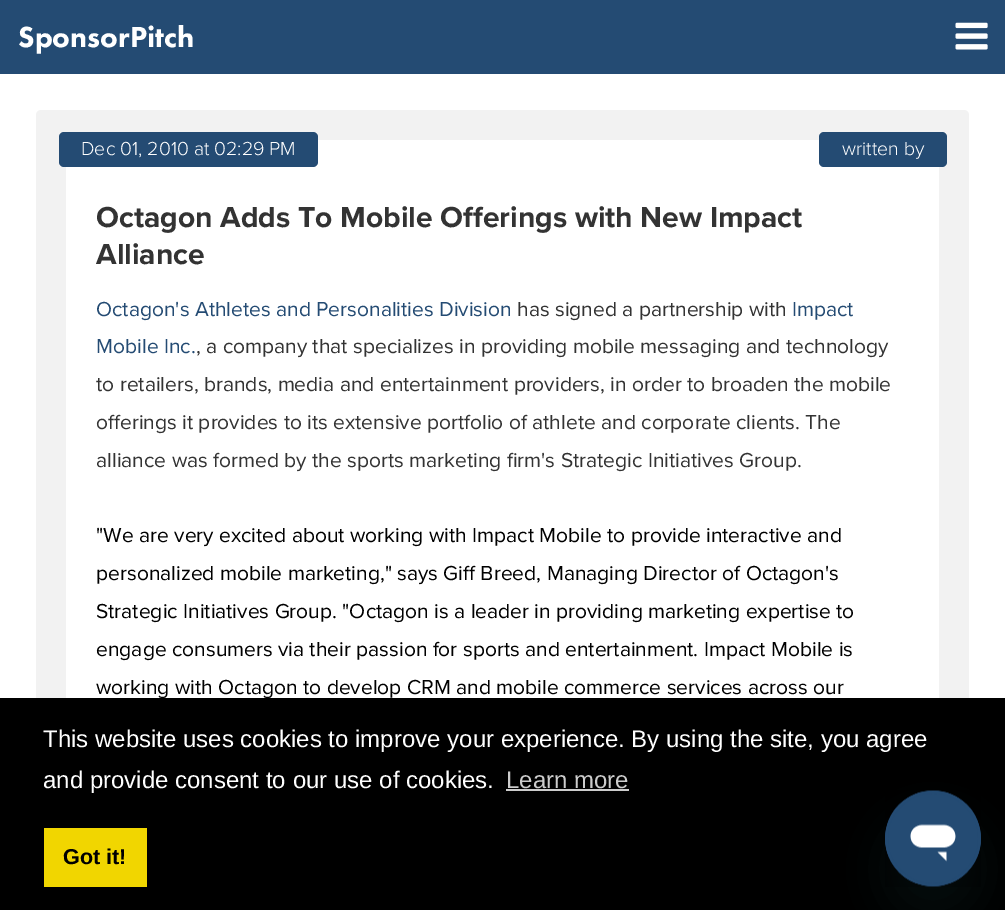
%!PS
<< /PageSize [1005 910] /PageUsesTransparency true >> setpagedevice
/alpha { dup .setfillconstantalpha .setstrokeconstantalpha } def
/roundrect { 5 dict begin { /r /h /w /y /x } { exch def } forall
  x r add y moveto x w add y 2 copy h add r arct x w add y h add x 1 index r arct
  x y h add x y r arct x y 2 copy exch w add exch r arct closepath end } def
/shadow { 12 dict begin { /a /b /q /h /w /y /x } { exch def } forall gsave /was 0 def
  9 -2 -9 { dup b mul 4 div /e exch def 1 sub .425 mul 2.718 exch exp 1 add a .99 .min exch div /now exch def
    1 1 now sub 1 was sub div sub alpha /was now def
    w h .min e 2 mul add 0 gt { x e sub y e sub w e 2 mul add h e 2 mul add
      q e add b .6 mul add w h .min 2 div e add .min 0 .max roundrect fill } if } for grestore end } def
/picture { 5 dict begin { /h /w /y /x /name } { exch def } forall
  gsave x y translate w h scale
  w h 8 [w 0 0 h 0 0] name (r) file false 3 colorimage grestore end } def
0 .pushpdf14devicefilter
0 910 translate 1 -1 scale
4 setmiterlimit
1 setgray
0 0 1005 910 rectfill
0.141 0.294 0.451 setrgbcolor
0 0 1005 74 rectfill
/FuturaPT-Black [30 0 0 -30 0 0] selectfont
1 setgray
18 47 moveto (SponsorPitch) show
(img1.rgb) 955 22 33 28 picture
0.949 setgray
36 110 933 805 5 roundrect fill
1 setgray
66 140 873 558 rectfill
0.141 0.294 0.451 setrgbcolor
59 132 259 35 5 roundrect fill
/ProximaNova-Light [19.5 0 0 -19.5 0 0] selectfont
1 setgray
81 155 moveto (Dec 01, 2010 at 02:29 PM) show
0.141 0.294 0.451 setrgbcolor
819 132 128 35 5 roundrect fill
1 setgray
842 155 moveto (written by) show
/ProximaNova-Bold [30 0 0 -30 0 0] selectfont
0.2 setgray
96 227 moveto (Octagon Adds To Mobile Offerings with New Impact) show
96 264 moveto (Alliance) show
/ProximaNova-Regular [21 0 0 -21 0 0] selectfont
0.141 0.294 0.451 setrgbcolor
96 316 moveto (Octagon's Athletes and Personalities Division) show
0.2 setgray
517 316 moveto (has signed a partnership with) show
0.141 0.294 0.451 setrgbcolor
792 316 moveto (Impact) show
96 353 moveto (Mobile Inc.) show
0.2 setgray
196 353 moveto (, a company that specializes in providing mobile messaging and technology) show
96 391 moveto (to retailers, brands, media and entertainment providers, in order to broaden the mobile) show
96 429 moveto (offerings it provides to its extensive portfolio of athlete and corporate clients. The) show
96 467 moveto (alliance was formed by the sports marketing firm's Strategic Initiatives Group.) show
0 setgray
96 542 moveto ("We are very excited about working with Impact Mobile to provide interactive and) show
96 580 moveto (personalized mobile marketing," says Giff Breed, Managing Director of Octagon's) show
96 618 moveto (Strategic Initiatives Group. "Octagon is a leader in providing marketing expertise to) show
96 656 moveto (engage consumers via their passion for sports and entertainment. Impact Mobile is) show
96 694 moveto (working with Octagon to develop CRM and mobile commerce services across our) show
0 698 1005 212 rectfill
/LiberationSans-Regular [24 0 0 -24 0 0] selectfont
1 setgray
43 747 moveto (This website uses cookies to improve your experience. By using the site, you agree) show
43 788 moveto (and provide consent to our use of cookies.) show
0.8 setgray
506 788 moveto (Learn more) show
506 789 123 2 rectfill
0.945 0.839 0 setrgbcolor
44 828 103 59 rectfill
/LiberationSans-Bold [21.5 0 0 -21.5 0 0] selectfont
0 setgray
63 864 moveto (Got it!) show
0.09 0.286 0.302 setrgbcolor
885 821 96 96 48 22.5 0.15 shadow
(img2.rgb) 885 790 96 97 picture
.poppdf14devicefilter showpage
